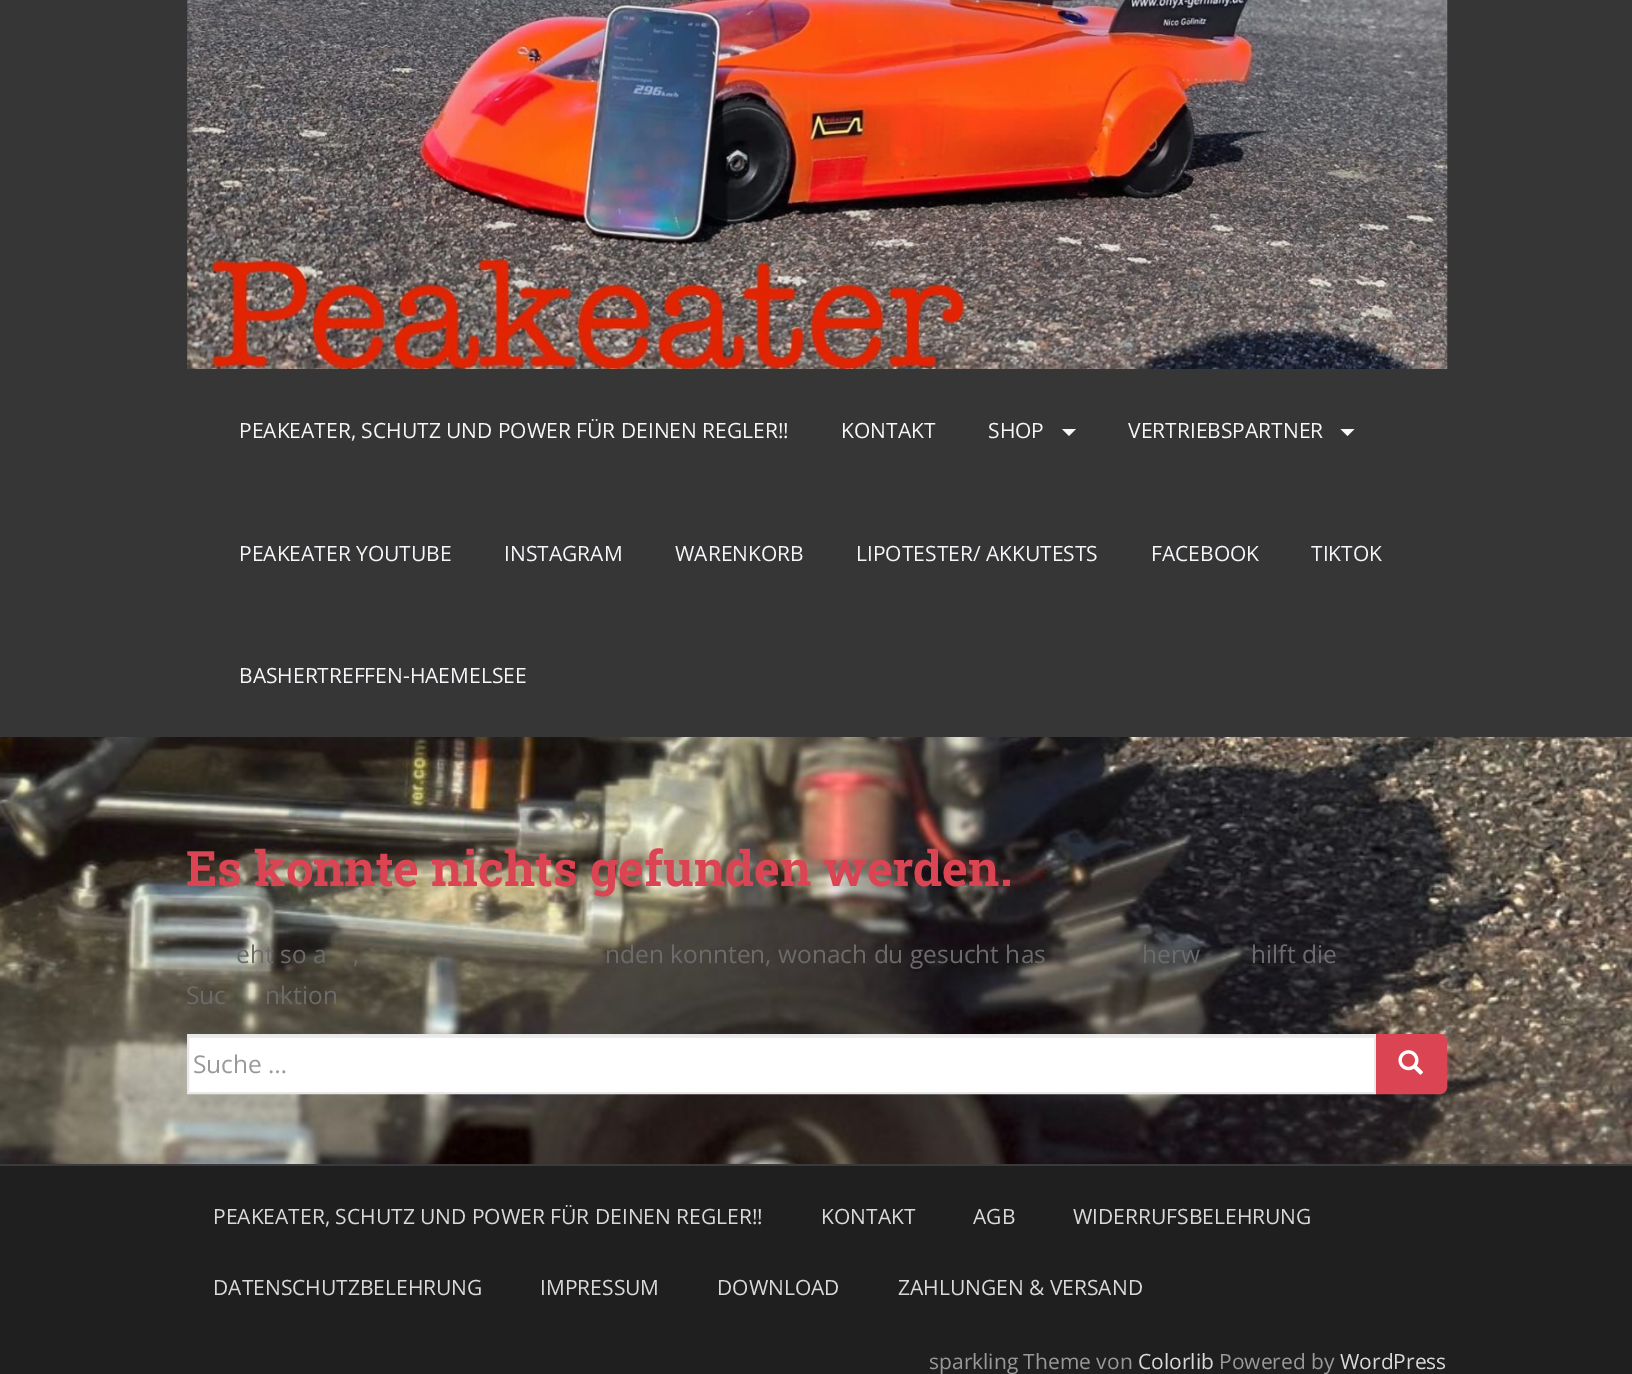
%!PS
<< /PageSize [1632 1374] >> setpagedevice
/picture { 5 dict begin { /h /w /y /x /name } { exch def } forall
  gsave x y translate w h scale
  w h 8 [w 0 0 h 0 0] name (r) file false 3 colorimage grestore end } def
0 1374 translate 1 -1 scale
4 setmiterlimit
1 setgray
0 0 1632 1374 rectfill
(img1.rgb) 0 737 1632 427 picture
0.212 setgray
0 0 1632 737 rectfill
(img2.rgb) 187 0 1261 369 picture
/OpenSans-Regular [21 0 0 -21 0 0] selectfont
0.961 0.969 0.98 setrgbcolor
239 438 moveto (PEAKEATER, SCHUTZ UND POWER FÜR DEINEN REGLER!!) show
841 438 moveto (KONTAKT) show
988 438 moveto (SHOP) show
newpath 1062 429 moveto 1076 429 lineto 1069 436 lineto closepath fill
1128 438 moveto (VERTRIEBSPARTNER) show
newpath 1340.5 429 moveto 1354.5 429 lineto 1347.5 436 lineto closepath fill
239 561 moveto (PEAKEATER YOUTUBE) show
504 561 moveto (INSTAGRAM) show
675 561 moveto (WARENKORB) show
856 561 moveto (LIPOTESTER/ AKKUTESTS) show
1151 561 moveto (FACEBOOK) show
1311 561 moveto (TIKTOK) show
239 683 moveto (BASHERTREFFEN-HAEMELSEE) show
/RobotoSlab-Bold [49 0 0 -49 0 0] selectfont
0.855 0.267 0.325 setrgbcolor
186 886 moveto (Es konnte nichts gefunden werden.) show
/OpenSans-Regular [24.5 0 0 -24.5 0 0] selectfont
0.42 setgray
236 963 moveto (eht so a) show
353 963 moveto (,) show
605 963 moveto (nden konnten, wonach du gesucht has) show
1142 963 moveto (herw) show
1251 963 moveto (hilft die) show
186 1004 moveto (Suc) show
265 1004 moveto (nktion) show
1 setgray
189 1038 1185 54 rectfill
0.925 setgray
189 1036 1185 2 rectfill
0.91 setgray
2 setlinewidth
188 1035 1187 58 rectstroke
0.6 setgray
193 1073 moveto (Suche …) show
0.855 0.267 0.325 setrgbcolor
newpath 1377 1035 moveto 1440 1035 lineto 1443.5 1035 1446 1037.5 1446 1041 curveto 1446 1087 lineto 1446 1090.5 1443.5 1093 1440 1093 curveto 1377 1093 lineto closepath gsave fill grestore
stroke
(img3.rgb) 1398 1050 25 25 picture
0.122 setgray
0 1166 1632 208 rectfill
0.227 setgray
0 1164 1632 2 rectfill
/OpenSans-Regular [21 0 0 -21 0 0] selectfont
0.855 setgray
213 1224 moveto (PEAKEATER, SCHUTZ UND POWER FÜR DEINEN REGLER!!) show
821 1224 moveto (KONTAKT) show
973 1224 moveto (AGB) show
1073 1224 moveto (WIDERRUFSBELEHRUNG) show
213 1295 moveto (DATENSCHUTZBELEHRUNG) show
540 1295 moveto (IMPRESSUM) show
717 1295 moveto (DOWNLOAD) show
898 1295 moveto (ZAHLUNGEN & VERSAND) show
0.6 setgray
929 1369 moveto (sparkling Theme von) show
0.855 setgray
1138 1369 moveto (Colorlib) show
0.6 setgray
1219 1369 moveto (Powered by) show
0.855 setgray
1340 1369 moveto (WordPress) show
showpage
